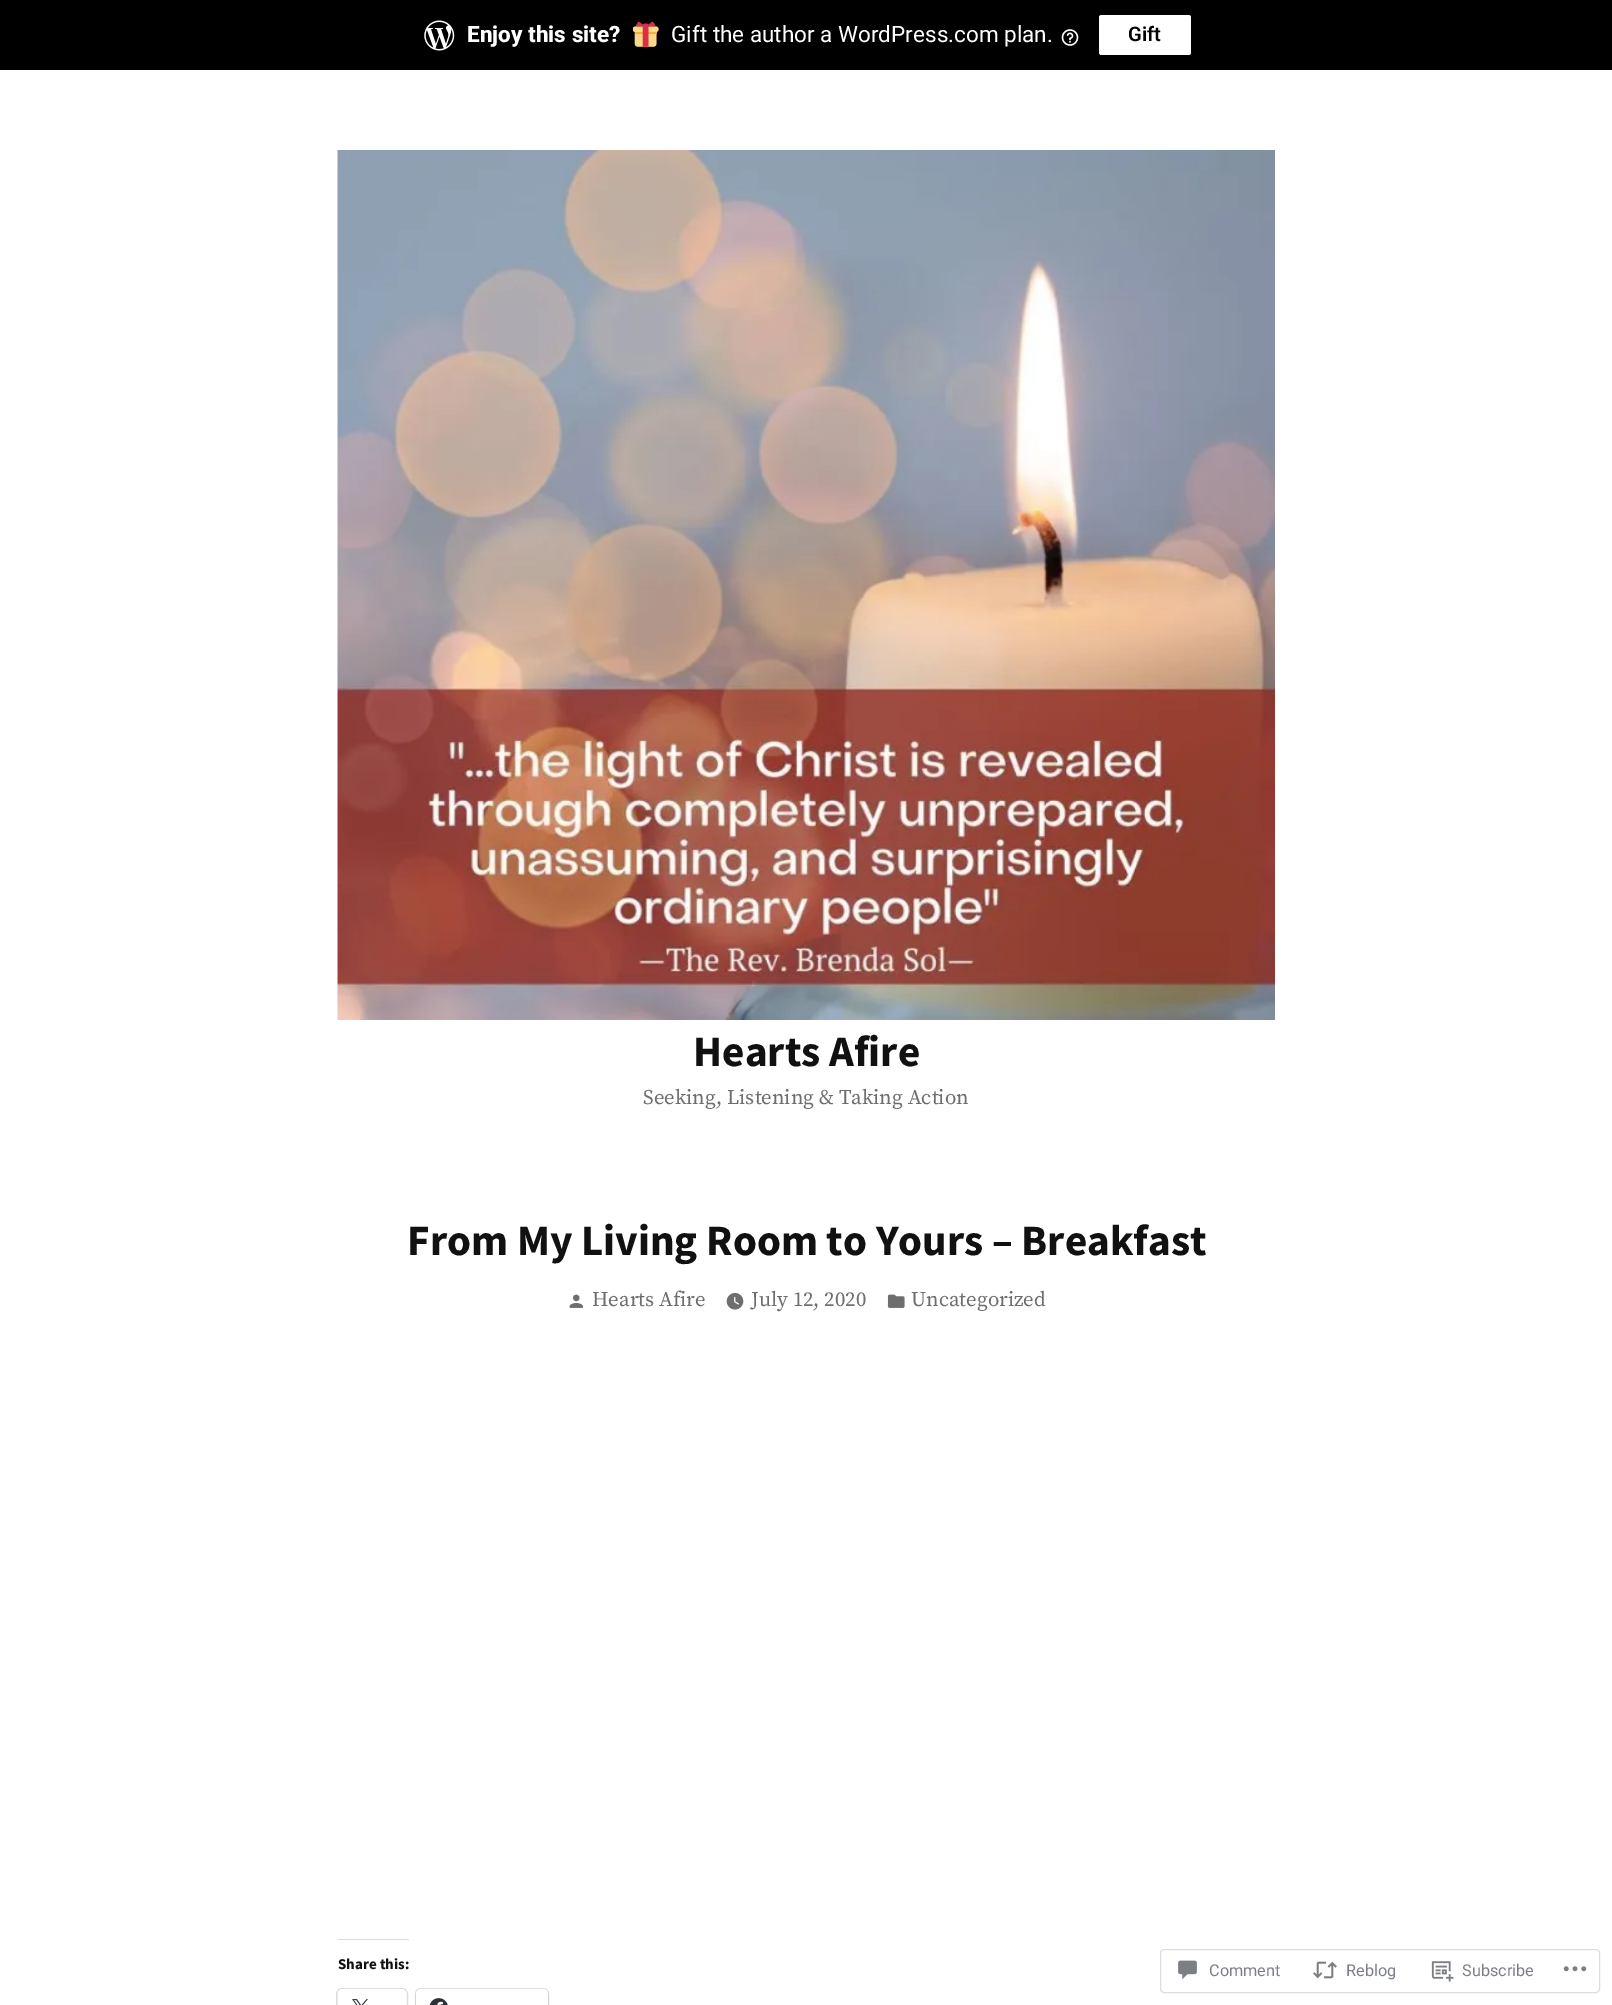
%!PS
<< /PageSize [1612 2005] /PageUsesTransparency true >> setpagedevice
/alpha { dup .setfillconstantalpha .setstrokeconstantalpha } def
/roundrect { 5 dict begin { /r /h /w /y /x } { exch def } forall
  x r add y moveto x w add y 2 copy h add r arct x w add y h add x 1 index r arct
  x y h add x y r arct x y 2 copy exch w add exch r arct closepath end } def
/shadow { 12 dict begin { /a /b /q /h /w /y /x } { exch def } forall gsave /was 0 def
  9 -2 -9 { dup b mul 4 div /e exch def 1 sub .425 mul 2.718 exch exp 1 add a .99 .min exch div /now exch def
    1 1 now sub 1 was sub div sub alpha /was now def
    w h .min e 2 mul add 0 gt { x e sub y e sub w e 2 mul add h e 2 mul add
      q e add b .6 mul add w h .min 2 div e add .min 0 .max roundrect fill } if } for grestore end } def
/picture { 5 dict begin { /h /w /y /x /name } { exch def } forall
  gsave x y translate w h scale
  w h 8 [w 0 0 h 0 0] name (r) file false 3 colorimage grestore end } def
0 .pushpdf14devicefilter
0 2005 translate 1 -1 scale
4 setmiterlimit
1 setgray
0 0 1612 2005 rectfill
0 setgray
0 0 1612 70 rectfill
(img1.rgb) 424 20 31 31 picture
/Roboto-ExtraBold [22.5 0 0 -22.5 0 0] selectfont
1 setgray
467 42 moveto (Enjoy this site?) show
(img2.rgb) 633 21 26 26 picture
/Roboto-Regular [22.5 0 0 -22.5 0 0] selectfont
671 42 moveto (Gift the author a WordPress.com plan.) show
(img3.rgb) 1061 29 18 17 picture
1099 15 92 40 2.5 roundrect fill
/Roboto-SemiBold [20 0 0 -20 0 0] selectfont
0 setgray
1128 41 moveto (Gift) show
(img4.rgb) 337 150 938 870 picture
/SourceSansPro-Bold [43.25 0 0 -43.25 0 0] selectfont
0.067 setgray
693 1066 moveto (Hearts Afire) show
/SourceSerifPro-Regular [20.8 0 0 -20.8 0 0] selectfont
0.431 setgray
643 1104 moveto (Seeking, Listening & Taking Action) show
/SourceSansPro-Bold [43.25 0 0 -43.25 0 0] selectfont
0.067 setgray
407 1255 moveto (From My Living Room to Yours – Breakfast) show
(img5.rgb) 569 1294 14 14 picture
/SourceSerifPro-Regular [20.8 0 0 -20.8 0 0] selectfont
0.431 setgray
592 1306 moveto (Hearts Afire) show
(img6.rgb) 726 1292 18 18 picture
751 1306 moveto (July 12, 2020) show
(img7.rgb) 887 1294 18 14 picture
911 1306 moveto (Uncategorized) show
0.863 0.863 0.871 setrgbcolor
338 1939 71 1 rectfill
/SourceSansPro-Bold [15 0 0 -15 0 0] selectfont
0.067 setgray
338 1969 moveto (Share this:) show
0.878 setgray
336.5 1988.5 71 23 5.5 roundrect stroke
0 setgray
338 1990 68 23 5 1 0.12 shadow
1 setgray
338 1989 68 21 5 roundrect fill
(img8.rgb) 352 1999 16 6 picture
0.878 setgray
415.5 1988.5 133 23 5.5 roundrect stroke
0 setgray
416 1990 132 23 5 1 0.12 shadow
1 setgray
416 1989 132 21 5 roundrect fill
(img9.rgb) 429 1998 19 7 picture
0.867 0.867 0.875 setrgbcolor
1160.5 1949.5 439 43 3.5 roundrect stroke
(img10.rgb) 1178 1960 19 20 picture
/Roboto-Regular [16.25 0 0 -16.25 0 0] selectfont
0.482 0.498 0.522 setrgbcolor
1209 1976 moveto (Comment) show
(img11.rgb) 1313 1961 24 18 picture
1346 1976 moveto (Reblog) show
(img12.rgb) 1431 1961 23 21 picture
1462 1976 moveto (Subscribe) show
(img13.rgb) 1563 1966 24 6 picture
.poppdf14devicefilter showpage
